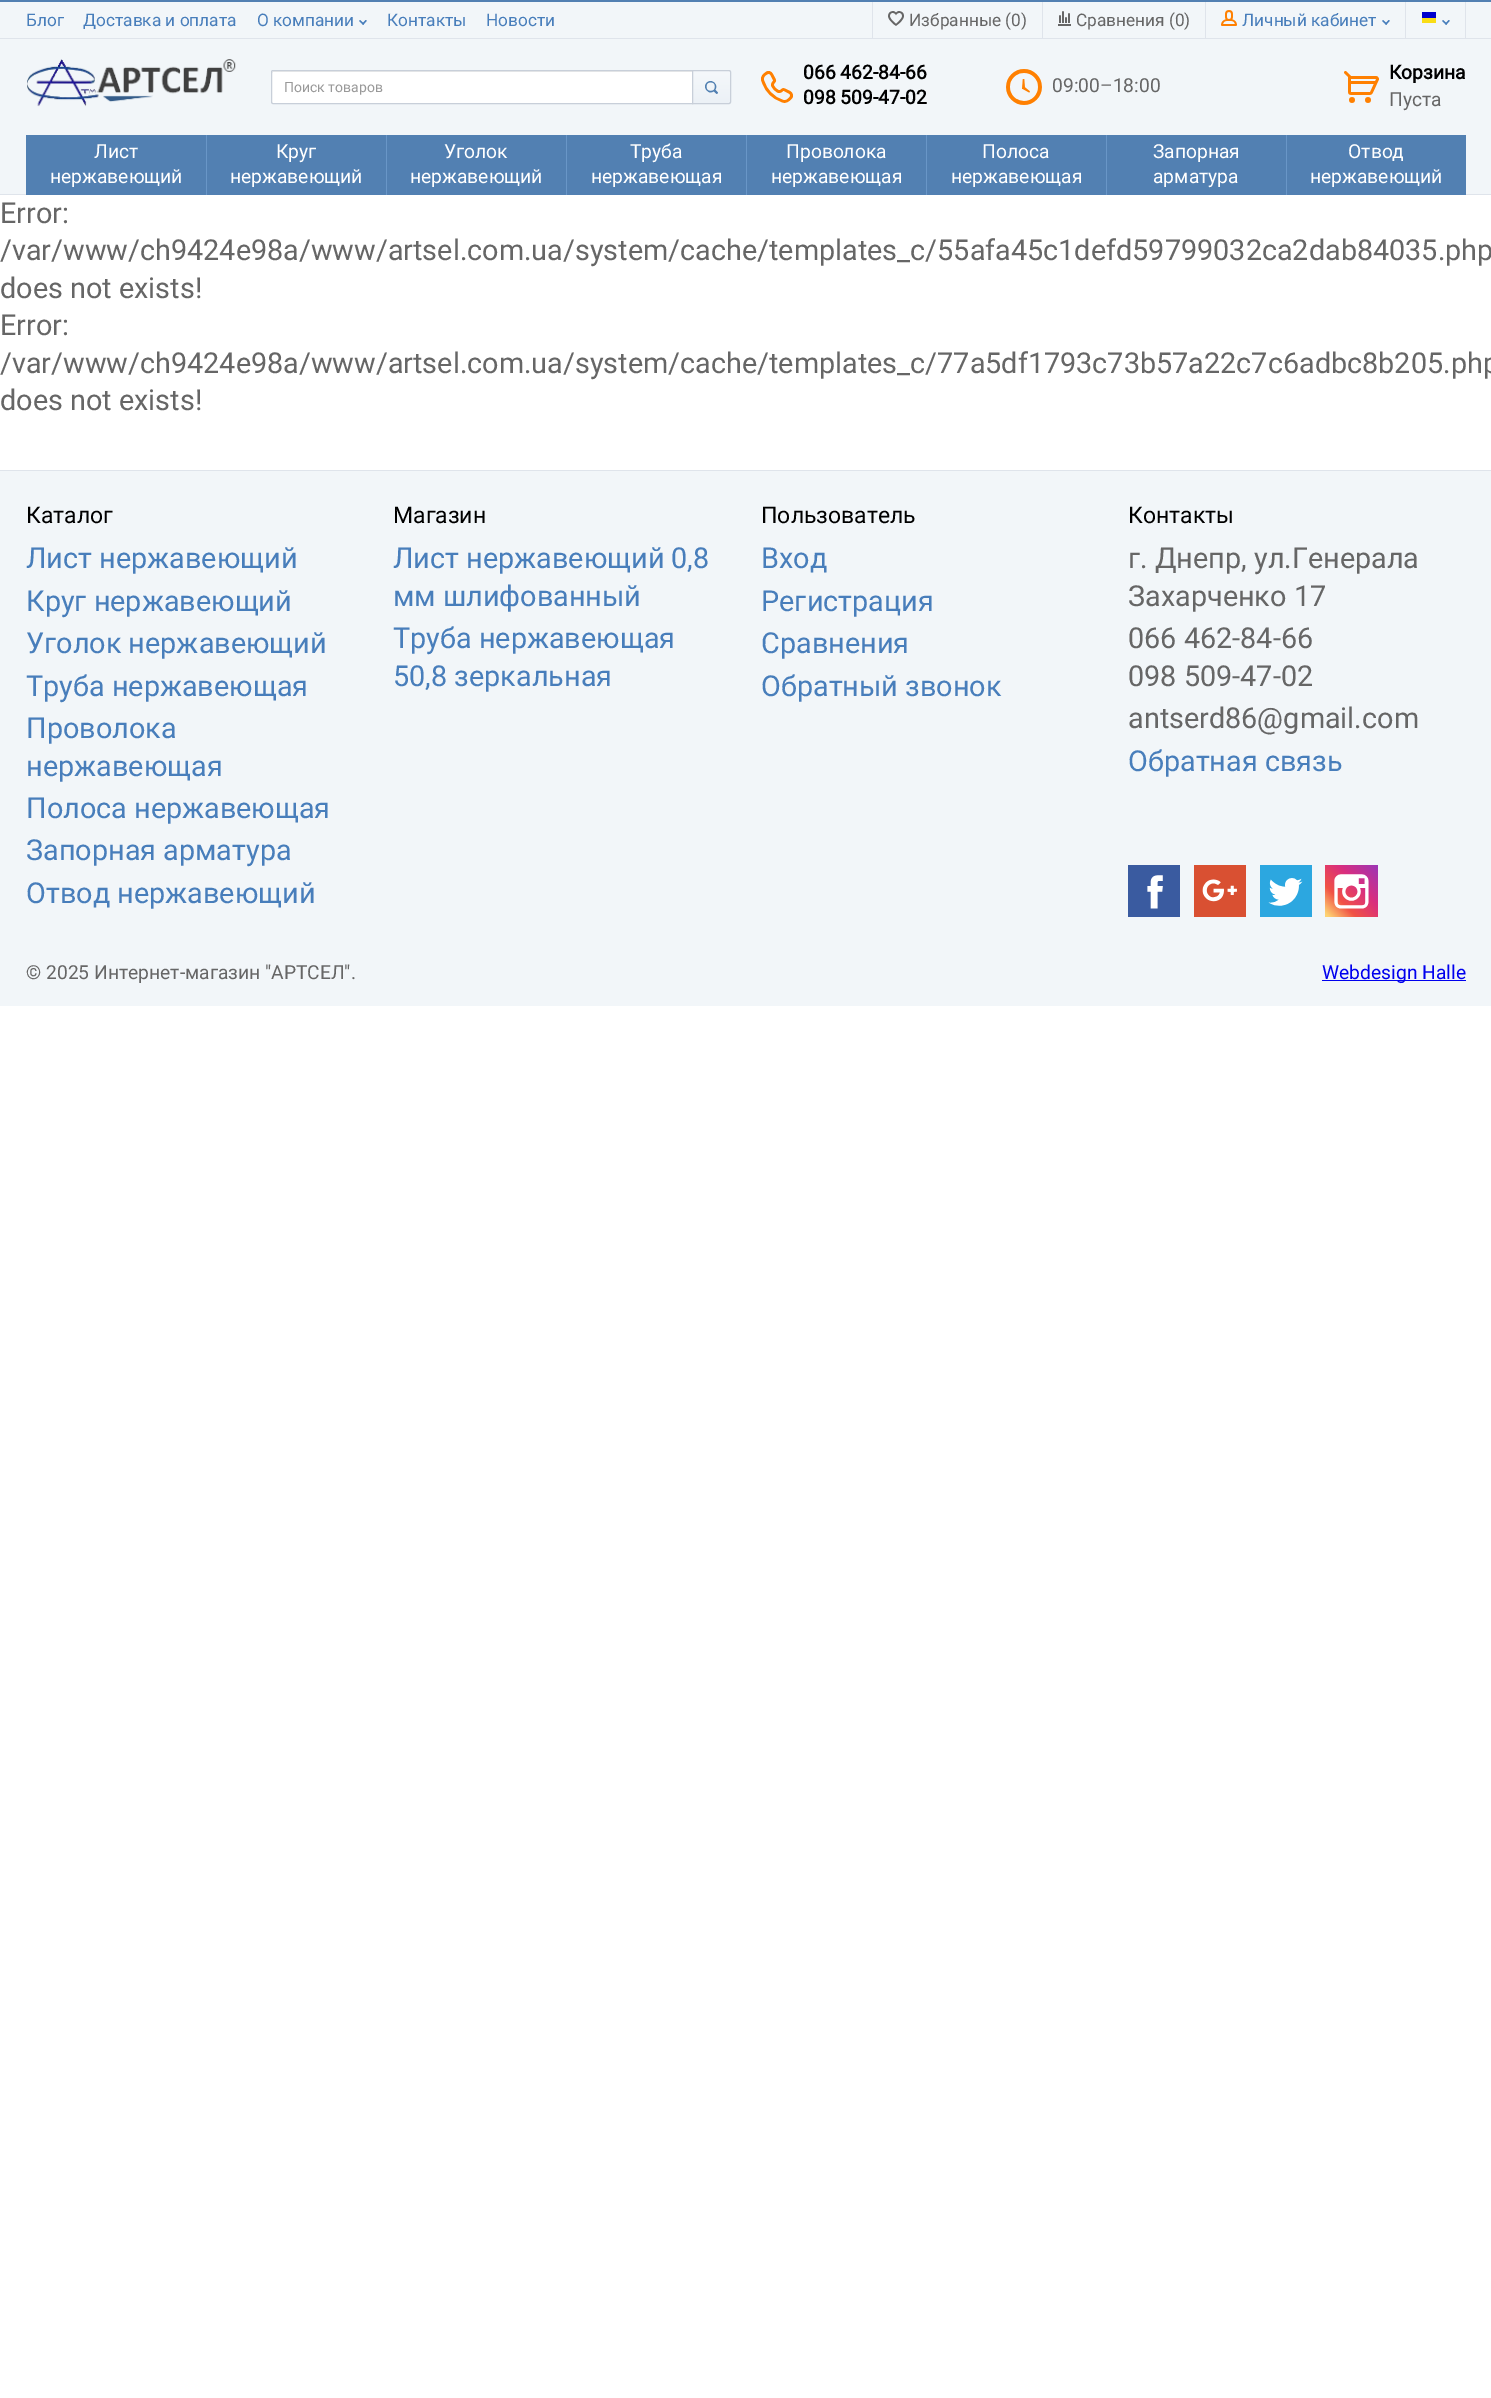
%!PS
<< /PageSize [1491 2398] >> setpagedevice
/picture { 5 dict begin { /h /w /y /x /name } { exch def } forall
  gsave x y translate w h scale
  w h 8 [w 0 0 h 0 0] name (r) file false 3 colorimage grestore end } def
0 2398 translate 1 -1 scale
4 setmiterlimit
1 setgray
0 0 1491 2398 rectfill
0.949 0.965 0.976 setrgbcolor
0 2 1491 192 rectfill
0.875 0.894 0.922 setrgbcolor
0 194 1491 1 rectfill
0.322 0.502 0.698 setrgbcolor
0 0 1491 2 rectfill
0.875 0.894 0.922 setrgbcolor
0 38 1491 1 rectfill
/Roboto-Regular [17.25 0 0 -17.25 0 0] selectfont
0.282 0.494 0.733 setrgbcolor
26 26 moveto (Блог) show
83 26 moveto (Доставка и оплата) show
257 26 moveto (О компании) show
(img1.rgb) 359 20 8 5 picture
387 26 moveto (Контакты) show
486 26 moveto (Новости) show
0.875 0.894 0.922 setrgbcolor
1042 2 1 36 rectfill
872 2 1 36 rectfill
(img2.rgb) 888 11 16 15 picture
0.4 setgray
909 26 moveto (Избранные \(0\)) show
0.875 0.894 0.922 setrgbcolor
1205 2 1 36 rectfill
(img3.rgb) 1058 11 13 15 picture
0.4 setgray
1076 26 moveto (Сравнения \(0\)) show
0.875 0.894 0.922 setrgbcolor
1405 2 1 36 rectfill
(img4.rgb) 1221 10 16 16 picture
0.282 0.494 0.733 setrgbcolor
1242 26 moveto (Личный кабинет) show
(img1.rgb) 1382 20 8 5 picture
0.875 0.894 0.922 setrgbcolor
1465 2 1 36 rectfill
(img5.rgb) 1422 12 14 11 picture
(img1.rgb) 1442 20 8 5 picture
(img6.rgb) 27 59 209 48 picture
1 setgray
newpath 273 70 moveto 693 70 lineto 693 104 lineto 273 104 lineto 272 104 271 103 271 102 curveto 271 72 lineto 271 71 272 70 273 70 curveto closepath fill
0.925 setgray
newpath 273 72 moveto 692 72 lineto 692 71 lineto 273 71 lineto 272 72 lineto 272 73 lineto closepath fill
0.784 0.812 0.851 setrgbcolor
newpath 273 70.5 moveto 692.5 70.5 lineto 692.5 103.5 lineto 273 103.5 lineto 272 103.5 271.5 103 271.5 102 curveto 271.5 72 lineto 271.5 71 272 70.5 273 70.5 curveto closepath stroke
/Roboto-Regular [14 0 0 -14 0 0] selectfont
0.6 setgray
284 92 moveto (Поиск товаров) show
gsave newpath 693 71 moveto 731 71 lineto 731 103 lineto 693 103 lineto closepath clip newpath
<< /ShadingType 2 /ColorSpace /DeviceRGB /Coords [712 71 712 103] /Extend [true true] /Function << /FunctionType 2 /Domain [0 1] /C0 [0.961 0.973 0.984] /C1 [0.925 0.945 0.965] /N 1 >> >> shfill grestore
0.784 0.812 0.851 setrgbcolor
newpath 692.5 70.5 moveto 729 70.5 lineto 730 70.5 730.5 71 730.5 72 curveto 730.5 102 lineto 730.5 103 730 103.5 729 103.5 curveto 692.5 103.5 lineto closepath stroke
(img7.rgb) 705 81 13 13 picture
(img8.rgb) 761 71 32 32 picture
/Roboto-Bold [19.25 0 0 -19.25 0 0] selectfont
0 setgray
803 79 moveto (066 462-84-66) show
803 104 moveto (098 509-47-02) show
(img9.rgb) 1006 69 36 36 picture
/Roboto-Regular [19.25 0 0 -19.25 0 0] selectfont
0.4 setgray
1052 92 moveto (09:00–18:00) show
(img10.rgb) 1344 71 35 32 picture
/Roboto-Bold [19.25 0 0 -19.25 0 0] selectfont
0 setgray
1389 79 moveto (Корзина) show
/Roboto-Regular [19.25 0 0 -19.25 0 0] selectfont
0.4 setgray
1389 106 moveto (Пуста) show
0.322 0.502 0.698 setrgbcolor
26 135 180 60 rectfill
1 setgray
94 158 moveto (Лист) show
50 183 moveto (нержавеющий) show
0.322 0.502 0.698 setrgbcolor
207 135 179 60 rectfill
0.412 0.588 0.78 setrgbcolor
206 135 1 60 rectfill
1 setgray
276 158 moveto (Круг) show
230 183 moveto (нержавеющий) show
0.322 0.502 0.698 setrgbcolor
387 135 179 60 rectfill
0.412 0.588 0.78 setrgbcolor
386 135 1 60 rectfill
1 setgray
444 158 moveto (Уголок) show
410 183 moveto (нержавеющий) show
0.322 0.502 0.698 setrgbcolor
567 135 179 60 rectfill
0.412 0.588 0.78 setrgbcolor
566 135 1 60 rectfill
1 setgray
630 158 moveto (Труба) show
591 183 moveto (нержавеющая) show
0.322 0.502 0.698 setrgbcolor
747 135 179 60 rectfill
0.412 0.588 0.78 setrgbcolor
746 135 1 60 rectfill
1 setgray
786 158 moveto (Проволока) show
771 183 moveto (нержавеющая) show
0.322 0.502 0.698 setrgbcolor
927 135 179 60 rectfill
0.412 0.588 0.78 setrgbcolor
926 135 1 60 rectfill
1 setgray
982 158 moveto (Полоса) show
951 183 moveto (нержавеющая) show
0.322 0.502 0.698 setrgbcolor
1107 135 179 60 rectfill
0.412 0.588 0.78 setrgbcolor
1106 135 1 60 rectfill
1 setgray
1153 158 moveto (Запорная) show
1153 183 moveto (арматура) show
0.322 0.502 0.698 setrgbcolor
1287 135 179 60 rectfill
0.412 0.588 0.78 setrgbcolor
1286 135 1 60 rectfill
1 setgray
1348 158 moveto (Отвод) show
1310 183 moveto (нержавеющий) show
/Roboto-Regular [28.8 0 0 -28.8 0 0] selectfont
0.4 setgray
0 223 moveto (Error:) show
0 260 moveto (/var/www/ch9424e98a/www/artsel.com.ua/system/cache/templates_c/55afa45c1defd59799032ca2dab84035.php) show
0 298 moveto (does not exists!) show
0 335 moveto (Error:) show
0 373 moveto (/var/www/ch9424e98a/www/artsel.com.ua/system/cache/templates_c/77a5df1793c73b57a22c7c6adbc8b205.php) show
0 410 moveto (does not exists!) show
0.949 0.965 0.976 setrgbcolor
0 471 1491 535 rectfill
0.875 0.894 0.922 setrgbcolor
0 470 1491 1 rectfill
/Roboto-Regular [23 0 0 -23 0 0] selectfont
0 setgray
26 523 moveto (Каталог) show
/Roboto-Regular [28.8 0 0 -28.8 0 0] selectfont
0.282 0.494 0.733 setrgbcolor
26 568 moveto (Лист нержавеющий) show
26 611 moveto (Круг нержавеющий) show
26 653 moveto (Уголок нержавеющий) show
26 696 moveto (Труба нержавеющая) show
26 738 moveto (Проволока) show
26 776 moveto (нержавеющая) show
26 818 moveto (Полоса нержавеющая) show
26 860 moveto (Запорная арматура) show
26 903 moveto (Отвод нержавеющий) show
/Roboto-Regular [23 0 0 -23 0 0] selectfont
0 setgray
393 523 moveto (Магазин) show
/Roboto-Regular [28.8 0 0 -28.8 0 0] selectfont
0.282 0.494 0.733 setrgbcolor
393 568 moveto (Лист нержавеющий 0,8) show
393 606 moveto (мм шлифованный) show
393 648 moveto (Труба нержавеющая) show
393 686 moveto (50,8 зеркальная) show
/Roboto-Regular [23 0 0 -23 0 0] selectfont
0 setgray
761 523 moveto (Пользователь) show
/Roboto-Regular [28.8 0 0 -28.8 0 0] selectfont
0.282 0.494 0.733 setrgbcolor
761 568 moveto (Вход) show
761 611 moveto (Регистрация) show
761 653 moveto (Сравнения) show
761 696 moveto (Обратный звонок) show
/Roboto-Regular [23 0 0 -23 0 0] selectfont
0 setgray
1128 523 moveto (Контакты) show
/Roboto-Regular [28.8 0 0 -28.8 0 0] selectfont
0.4 setgray
1128 568 moveto (г. Днепр, ул.Генерала) show
1128 606 moveto (Захарченко 17) show
1128 648 moveto (066 462-84-66) show
1128 686 moveto (098 509-47-02) show
1128 728 moveto (antserd86@gmail.com) show
0.282 0.494 0.733 setrgbcolor
1128 771 moveto (Обратная связь) show
0.227 0.357 0.627 setrgbcolor
1128 865 52 52 rectfill
(img11.rgb) 1147 875 16 34 picture
0.851 0.314 0.196 setrgbcolor
1194 865 52 52 rectfill
(img12.rgb) 1202 879 35 23 picture
0.173 0.655 0.878 setrgbcolor
1260 865 52 52 rectfill
(img13.rgb) 1268 878 35 28 picture
gsave newpath 1325 865 moveto 1378 865 lineto 1378 917 lineto 1325 917 lineto closepath clip newpath
<< /ShadingType 2 /ColorSpace /DeviceRGB /Coords [1325 917 1378 865] /Extend [true true] /Function << /FunctionType 3 /Domain [0 1] /Functions [<< /FunctionType 2 /Domain [0 1] /C0 [0.996 0.827 0.451] /C1 [0.996 0.827 0.451] /N 1 >> << /FunctionType 2 /Domain [0 1] /C0 [0.996 0.827 0.451] /C1 [0.945 0.322 0.271] /N 1 >> << /FunctionType 2 /Domain [0 1] /C0 [0.945 0.322 0.271] /C1 [0.851 0.18 0.498] /N 1 >> << /FunctionType 2 /Domain [0 1] /C0 [0.851 0.18 0.498] /C1 [0.608 0.212 0.718] /N 1 >>] /Bounds [0.04 0.3 0.62] /Encode [0 1 0 1 0 1 0 1] >> >> shfill grestore
(img14.rgb) 1334 874 35 35 picture
/Roboto-Regular [19.25 0 0 -19.25 0 0] selectfont
0.4 setgray
26 979 moveto (© 2025 Интернет-магазин "АРТСЕЛ".) show
0 0 0.933 setrgbcolor
1322 980 144 1 rectfill
1322 979 moveto (Webdesign Halle) show
showpage
